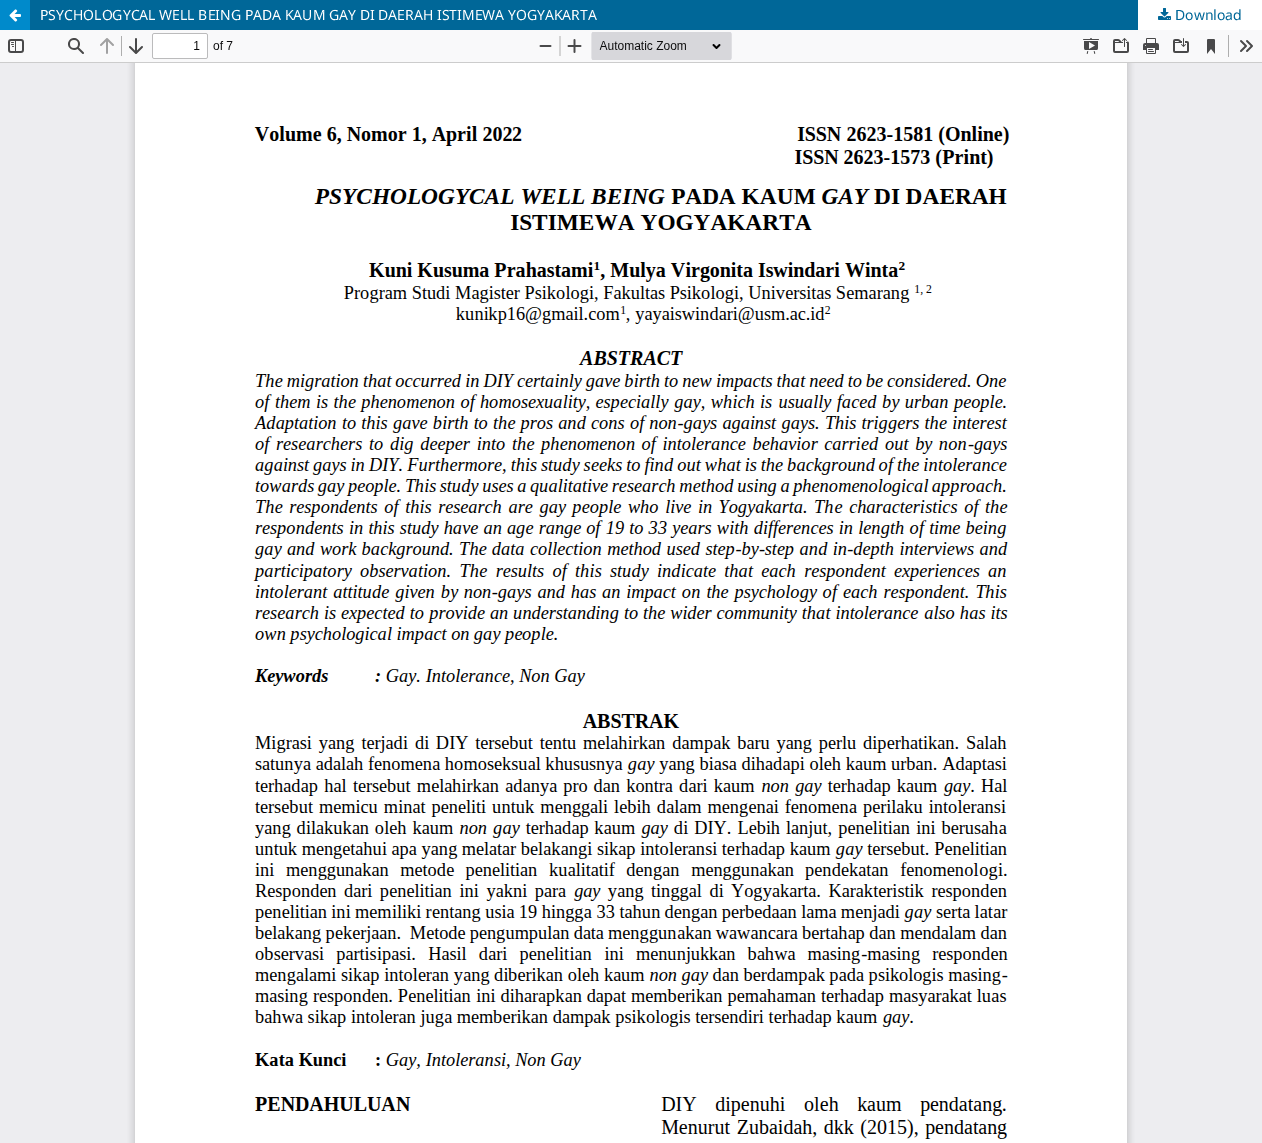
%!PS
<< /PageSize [1262 1143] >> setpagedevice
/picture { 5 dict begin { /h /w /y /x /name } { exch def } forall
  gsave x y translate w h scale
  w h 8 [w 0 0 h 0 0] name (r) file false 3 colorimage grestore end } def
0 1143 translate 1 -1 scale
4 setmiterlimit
1 setgray
0 0 1262 1143 rectfill
0 0.404 0.596 setrgbcolor
30 0 1108 30 rectfill
0 0.541 0.796 setrgbcolor
0 0 30 30 rectfill
(img1.rgb) 9 9 12 13 picture
/NotoSans-Regular [14 0 0 -14 0 0] selectfont
1 setgray
40 20 moveto (PSYCHOLOGYCAL WELL BEING PADA KAUM GAY DI DAERAH ISTIMEWA YOGYAKARTA) show
(img2.rgb) 1158 8 13 12 picture
0 0.404 0.596 setrgbcolor
1175 20 moveto (Download) show
(img3.rgb) 0 30 1262 1113 picture
showpage
